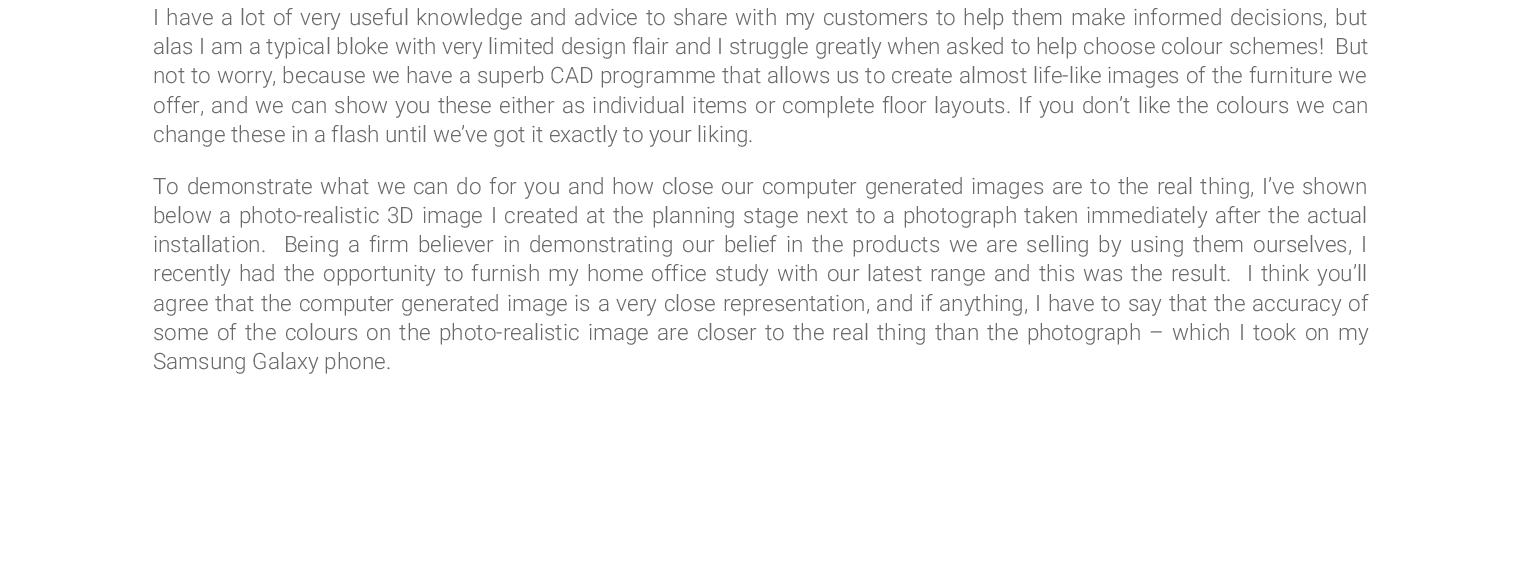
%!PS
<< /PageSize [1521 562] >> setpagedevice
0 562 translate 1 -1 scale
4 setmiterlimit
1 setgray
0 0 1521 562 rectfill
/Roboto-Light [22.5 0 0 -22.5 0 0] selectfont
0.416 setgray
153 25 moveto 2 0 32 (I have a lot of very useful knowledge and advice to share with my customers to help them make informed decisions, but) widthshow
153 54 moveto 0.2 0 32 (alas I am a typical bloke with very limited design flair and I struggle greatly when asked to help choose colour schemes!  But) widthshow
153 83 moveto 0.4 0 32 (not to worry, because we have a superb CAD programme that allows us to create almost life-like images of the furniture we) widthshow
153 113 moveto 1.7 0 32 (offer, and we can show you these either as individual items or complete floor layouts. If you don’t like the colours we can) widthshow
153 142 moveto (change these in a flash until we’ve got it exactly to your liking.) show
153 194 moveto 2.1 0 32 (To demonstrate what we can do for you and how close our computer generated images are to the real thing, I’ve shown) widthshow
153 223 moveto 2.1 0 32 (below a photo-realistic 3D image I created at the planning stage next to a photograph taken immediately after the actual) widthshow
153 252 moveto 3.4 0 32 (installation.  Being a firm believer in demonstrating our belief in the products we are selling by using them ourselves, I) widthshow
153 281 moveto 2.5 0 32 (recently had the opportunity to furnish my home office study with our latest range and this was the result.  I think you’ll) widthshow
153 311 moveto 1.2 0 32 (agree that the computer generated image is a very close representation, and if anything, I have to say that the accuracy of) widthshow
153 340 moveto 2.8 0 32 (some of the colours on the photo-realistic image are closer to the real thing than the photograph – which I took on my) widthshow
153 369 moveto (Samsung Galaxy phone.) show
showpage
